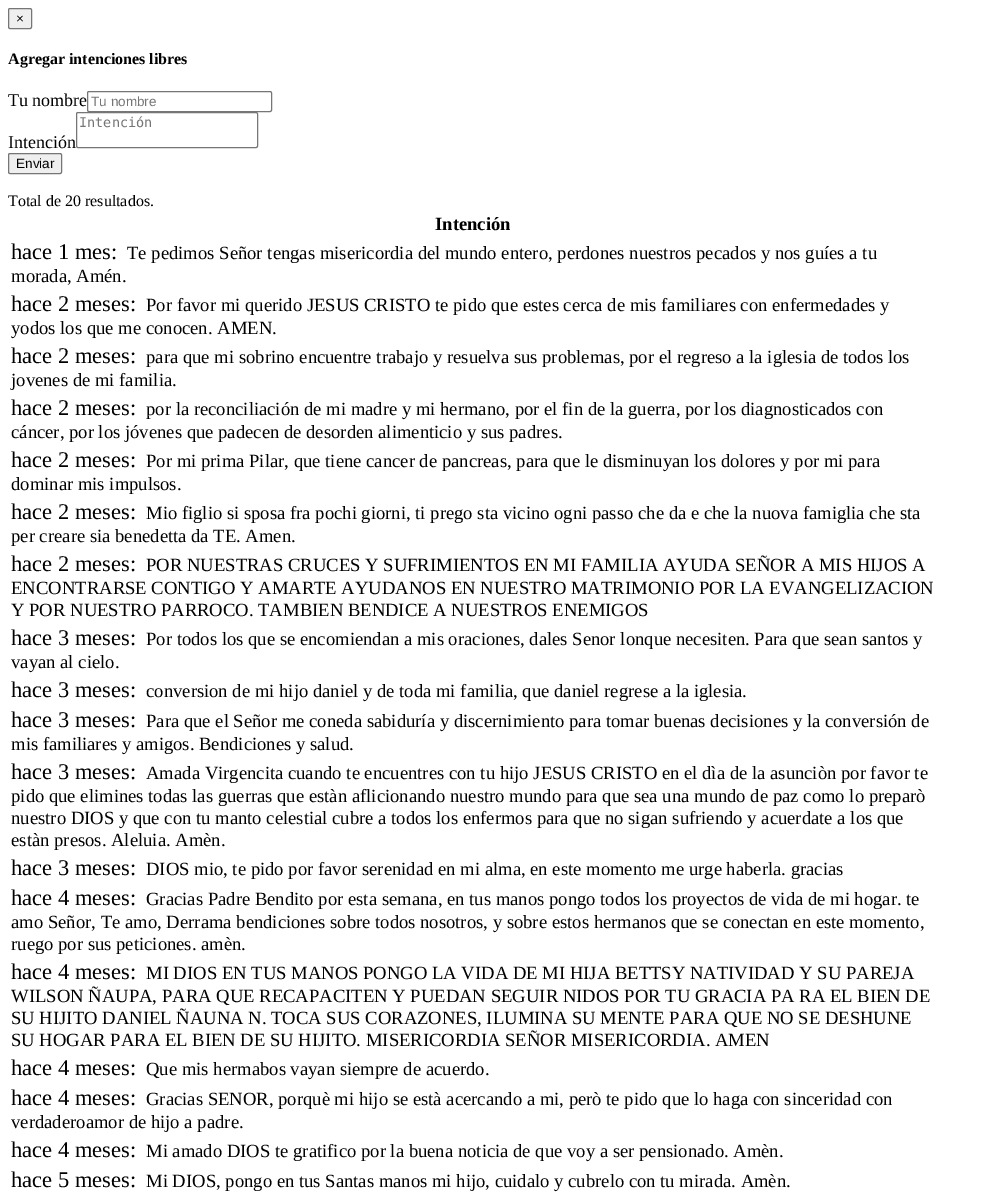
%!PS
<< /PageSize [995 1192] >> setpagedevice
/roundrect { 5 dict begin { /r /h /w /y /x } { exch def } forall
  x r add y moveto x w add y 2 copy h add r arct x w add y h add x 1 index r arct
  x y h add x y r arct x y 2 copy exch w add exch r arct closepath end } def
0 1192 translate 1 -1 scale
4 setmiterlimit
1 setgray
0 0 995 1192 rectfill
0.937 setgray
8.5 8.5 23 20 1.5 roundrect gsave fill grestore
0.463 setgray
stroke
/LiberationSans-Regular [13.5 0 0 -13.5 0 0] selectfont
0 setgray
16 23 moveto (×) show
/LiberationSerif-Bold [16 0 0 -16 0 0] selectfont
8 64 moveto (Agregar intenciones libres) show
/LiberationSerif-Regular [18 0 0 -18 0 0] selectfont
8 106 moveto (Tu nombre) show
0.463 setgray
87.5 91.5 184 20 1.5 roundrect stroke
/LiberationSans-Regular [13.5 0 0 -13.5 0 0] selectfont
0.459 setgray
91 106 moveto (Tu nombre) show
0.463 setgray
76.5 112.5 181 35 1.5 roundrect stroke
/DejaVuSansMono-Regular [13.5 0 0 -13.5 0 0] selectfont
0.459 setgray
79 127 moveto (Intención) show
/LiberationSerif-Regular [18 0 0 -18 0 0] selectfont
0 setgray
8 148 moveto (Intención) show
0.937 setgray
8.5 153.5 53 20 1.5 roundrect gsave fill grestore
0.463 setgray
stroke
/LiberationSans-Regular [13.5 0 0 -13.5 0 0] selectfont
0 setgray
16 168 moveto (Enviar) show
/LiberationSerif-Regular [16 0 0 -16 0 0] selectfont
8 206 moveto (Total de 20 resultados.) show
/LiberationSerif-Bold [18.65 0 0 -18.65 0 0] selectfont
435 230 moveto (Intención) show
/LiberationSerif-Regular [22.5 0 0 -22.5 0 0] selectfont
11 259 moveto (hace 1 mes:) show
/LiberationSerif-Regular [18.65 0 0 -18.65 0 0] selectfont
127 259 moveto (Te pedimos Señor tengas misericordia del mundo entero, perdones nuestros pecados y nos guíes a tu) show
11 282 moveto (morada, Amén.) show
/LiberationSerif-Regular [22.5 0 0 -22.5 0 0] selectfont
11 311 moveto (hace 2 meses:) show
/LiberationSerif-Regular [18.65 0 0 -18.65 0 0] selectfont
146 311 moveto (Por favor mi querido JESUS CRISTO te pido que estes cerca de mis familiares con enfermedades y) show
11 334 moveto (yodos los que me conocen. AMEN.) show
/LiberationSerif-Regular [22.5 0 0 -22.5 0 0] selectfont
11 363 moveto (hace 2 meses:) show
/LiberationSerif-Regular [18.65 0 0 -18.65 0 0] selectfont
146 363 moveto (para que mi sobrino encuentre trabajo y resuelva sus problemas, por el regreso a la iglesia de todos los) show
11 386 moveto (jovenes de mi familia.) show
/LiberationSerif-Regular [22.5 0 0 -22.5 0 0] selectfont
11 415 moveto (hace 2 meses:) show
/LiberationSerif-Regular [18.65 0 0 -18.65 0 0] selectfont
146 415 moveto (por la reconciliación de mi madre y mi hermano, por el fin de la guerra, por los diagnosticados con) show
11 438 moveto (cáncer, por los jóvenes que padecen de desorden alimenticio y sus padres.) show
/LiberationSerif-Regular [22.5 0 0 -22.5 0 0] selectfont
11 467 moveto (hace 2 meses:) show
/LiberationSerif-Regular [18.65 0 0 -18.65 0 0] selectfont
146 467 moveto (Por mi prima Pilar, que tiene cancer de pancreas, para que le disminuyan los dolores y por mi para) show
11 490 moveto (dominar mis impulsos.) show
/LiberationSerif-Regular [22.5 0 0 -22.5 0 0] selectfont
11 519 moveto (hace 2 meses:) show
/LiberationSerif-Regular [18.65 0 0 -18.65 0 0] selectfont
146 519 moveto (Mio figlio si sposa fra pochi giorni, ti prego sta vicino ogni passo che da e che la nuova famiglia che sta) show
11 542 moveto (per creare sia benedetta da TE. Amen.) show
/LiberationSerif-Regular [22.5 0 0 -22.5 0 0] selectfont
11 571 moveto (hace 2 meses:) show
/LiberationSerif-Regular [18.65 0 0 -18.65 0 0] selectfont
146 571 moveto (POR NUESTRAS CRUCES Y SUFRIMIENTOS EN MI FAMILIA AYUDA SEÑOR A MIS HIJOS A) show
11 594 moveto (ENCONTRARSE CONTIGO Y AMARTE AYUDANOS EN NUESTRO MATRIMONIO POR LA EVANGELIZACION) show
11 616 moveto (Y POR NUESTRO PARROCO. TAMBIEN BENDICE A NUESTROS ENEMIGOS) show
/LiberationSerif-Regular [22.5 0 0 -22.5 0 0] selectfont
11 645 moveto (hace 3 meses:) show
/LiberationSerif-Regular [18.65 0 0 -18.65 0 0] selectfont
146 645 moveto (Por todos los que se encomiendan a mis oraciones, dales Senor lonque necesiten. Para que sean santos y) show
11 668 moveto (vayan al cielo.) show
/LiberationSerif-Regular [22.5 0 0 -22.5 0 0] selectfont
11 697 moveto (hace 3 meses:) show
/LiberationSerif-Regular [18.65 0 0 -18.65 0 0] selectfont
146 697 moveto (conversion de mi hijo daniel y de toda mi familia, que daniel regrese a la iglesia.) show
/LiberationSerif-Regular [22.5 0 0 -22.5 0 0] selectfont
11 727 moveto (hace 3 meses:) show
/LiberationSerif-Regular [18.65 0 0 -18.65 0 0] selectfont
146 727 moveto (Para que el Señor me coneda sabiduría y discernimiento para tomar buenas decisiones y la conversión de) show
11 750 moveto (mis familiares y amigos. Bendiciones y salud.) show
/LiberationSerif-Regular [22.5 0 0 -22.5 0 0] selectfont
11 779 moveto (hace 3 meses:) show
/LiberationSerif-Regular [18.65 0 0 -18.65 0 0] selectfont
146 779 moveto (Amada Virgencita cuando te encuentres con tu hijo JESUS CRISTO en el dìa de la asunciòn por favor te) show
11 802 moveto (pido que elimines todas las guerras que estàn aflicionando nuestro mundo para que sea una mundo de paz como lo preparò) show
11 824 moveto (nuestro DIOS y que con tu manto celestial cubre a todos los enfermos para que no sigan sufriendo y acuerdate a los que) show
11 846 moveto (estàn presos. Aleluia. Amèn.) show
/LiberationSerif-Regular [22.5 0 0 -22.5 0 0] selectfont
11 875 moveto (hace 3 meses:) show
/LiberationSerif-Regular [18.65 0 0 -18.65 0 0] selectfont
146 875 moveto (DIOS mio, te pido por favor serenidad en mi alma, en este momento me urge haberla. gracias) show
/LiberationSerif-Regular [22.5 0 0 -22.5 0 0] selectfont
11 905 moveto (hace 4 meses:) show
/LiberationSerif-Regular [18.65 0 0 -18.65 0 0] selectfont
146 905 moveto (Gracias Padre Bendito por esta semana, en tus manos pongo todos los proyectos de vida de mi hogar. te) show
11 928 moveto (amo Señor, Te amo, Derrama bendiciones sobre todos nosotros, y sobre estos hermanos que se conectan en este momento,) show
11 950 moveto (ruego por sus peticiones. amèn.) show
/LiberationSerif-Regular [22.5 0 0 -22.5 0 0] selectfont
11 979 moveto (hace 4 meses:) show
/LiberationSerif-Regular [18.65 0 0 -18.65 0 0] selectfont
146 979 moveto (MI DIOS EN TUS MANOS PONGO LA VIDA DE MI HIJA BETTSY NATIVIDAD Y SU PAREJA) show
11 1002 moveto (WILSON ÑAUPA, PARA QUE RECAPACITEN Y PUEDAN SEGUIR NIDOS POR TU GRACIA PA RA EL BIEN DE) show
11 1024 moveto (SU HIJITO DANIEL ÑAUNA N. TOCA SUS CORAZONES, ILUMINA SU MENTE PARA QUE NO SE DESHUNE) show
11 1046 moveto (SU HOGAR PARA EL BIEN DE SU HIJITO. MISERICORDIA SEÑOR MISERICORDIA. AMEN) show
/LiberationSerif-Regular [22.5 0 0 -22.5 0 0] selectfont
11 1075 moveto (hace 4 meses:) show
/LiberationSerif-Regular [18.65 0 0 -18.65 0 0] selectfont
146 1075 moveto (Que mis hermabos vayan siempre de acuerdo.) show
/LiberationSerif-Regular [22.5 0 0 -22.5 0 0] selectfont
11 1105 moveto (hace 4 meses:) show
/LiberationSerif-Regular [18.65 0 0 -18.65 0 0] selectfont
146 1105 moveto (Gracias SENOR, porquè mi hijo se està acercando a mi, però te pido que lo haga con sinceridad con) show
11 1128 moveto (verdaderoamor de hijo a padre.) show
/LiberationSerif-Regular [22.5 0 0 -22.5 0 0] selectfont
11 1157 moveto (hace 4 meses:) show
/LiberationSerif-Regular [18.65 0 0 -18.65 0 0] selectfont
146 1157 moveto (Mi amado DIOS te gratifico por la buena noticia de que voy a ser pensionado. Amèn.) show
/LiberationSerif-Regular [22.5 0 0 -22.5 0 0] selectfont
11 1187 moveto (hace 5 meses:) show
/LiberationSerif-Regular [18.65 0 0 -18.65 0 0] selectfont
146 1187 moveto (Mi DIOS, pongo en tus Santas manos mi hijo, cuidalo y cubrelo con tu mirada. Amèn.) show
showpage
